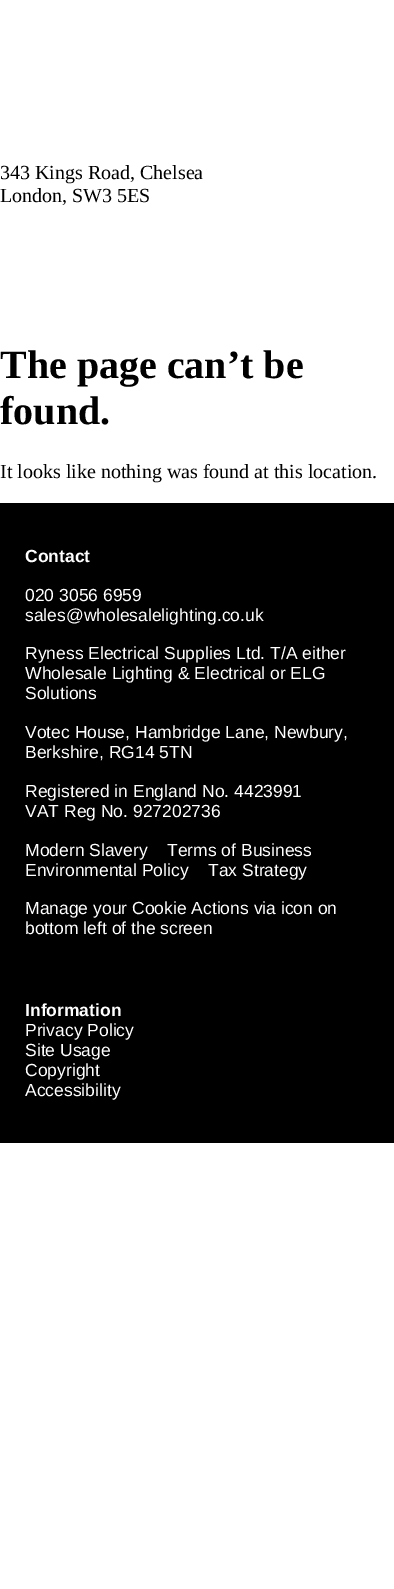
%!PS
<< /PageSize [394 1589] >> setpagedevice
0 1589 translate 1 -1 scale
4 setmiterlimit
1 setgray
0 0 394 1589 rectfill
/LiberationSerif-Regular [20 0 0 -20 0 0] selectfont
0 setgray
0 179 moveto (343 Kings Road, Chelsea) show
0 202 moveto (London, SW3 5ES) show
/LiberationSerif-Bold [40 0 0 -40 0 0] selectfont
0 378 moveto (The page can’t be) show
0 424 moveto (found.) show
/LiberationSerif-Regular [20 0 0 -20 0 0] selectfont
0 478 moveto (It looks like nothing was found at this location.) show
0 503 394 640 rectfill
/LiberationSans-Bold [17.5 0 0 -17.5 0 0] selectfont
1 setgray
25 562 moveto (Contact) show
/LiberationSans-Regular [17.5 0 0 -17.5 0 0] selectfont
25 601 moveto (020 3056 6959) show
25 621 moveto (sales@wholesalelighting.co.uk) show
25 659 moveto (Ryness Electrical Supplies Ltd. T/A either) show
25 679 moveto (Wholesale Lighting & Electrical or ELG) show
25 699 moveto (Solutions) show
25 738 moveto (Votec House, Hambridge Lane, Newbury,) show
25 758 moveto (Berkshire, RG14 5TN) show
25 797 moveto (Registered in England No. 4423991) show
25 817 moveto (VAT Reg No. 927202736) show
25 856 moveto (Modern Slavery) show
167 856 moveto (Terms of Business) show
25 876 moveto (Environmental Policy) show
208 876 moveto (Tax Strategy) show
25 914 moveto (Manage your Cookie Actions via icon on) show
25 934 moveto (bottom left of the screen) show
/LiberationSans-Bold [17.5 0 0 -17.5 0 0] selectfont
25 1016 moveto (Information) show
/LiberationSans-Regular [17.5 0 0 -17.5 0 0] selectfont
25 1036 moveto (Privacy Policy) show
25 1056 moveto (Site Usage) show
25 1076 moveto (Copyright) show
25 1096 moveto (Accessibility) show
showpage
